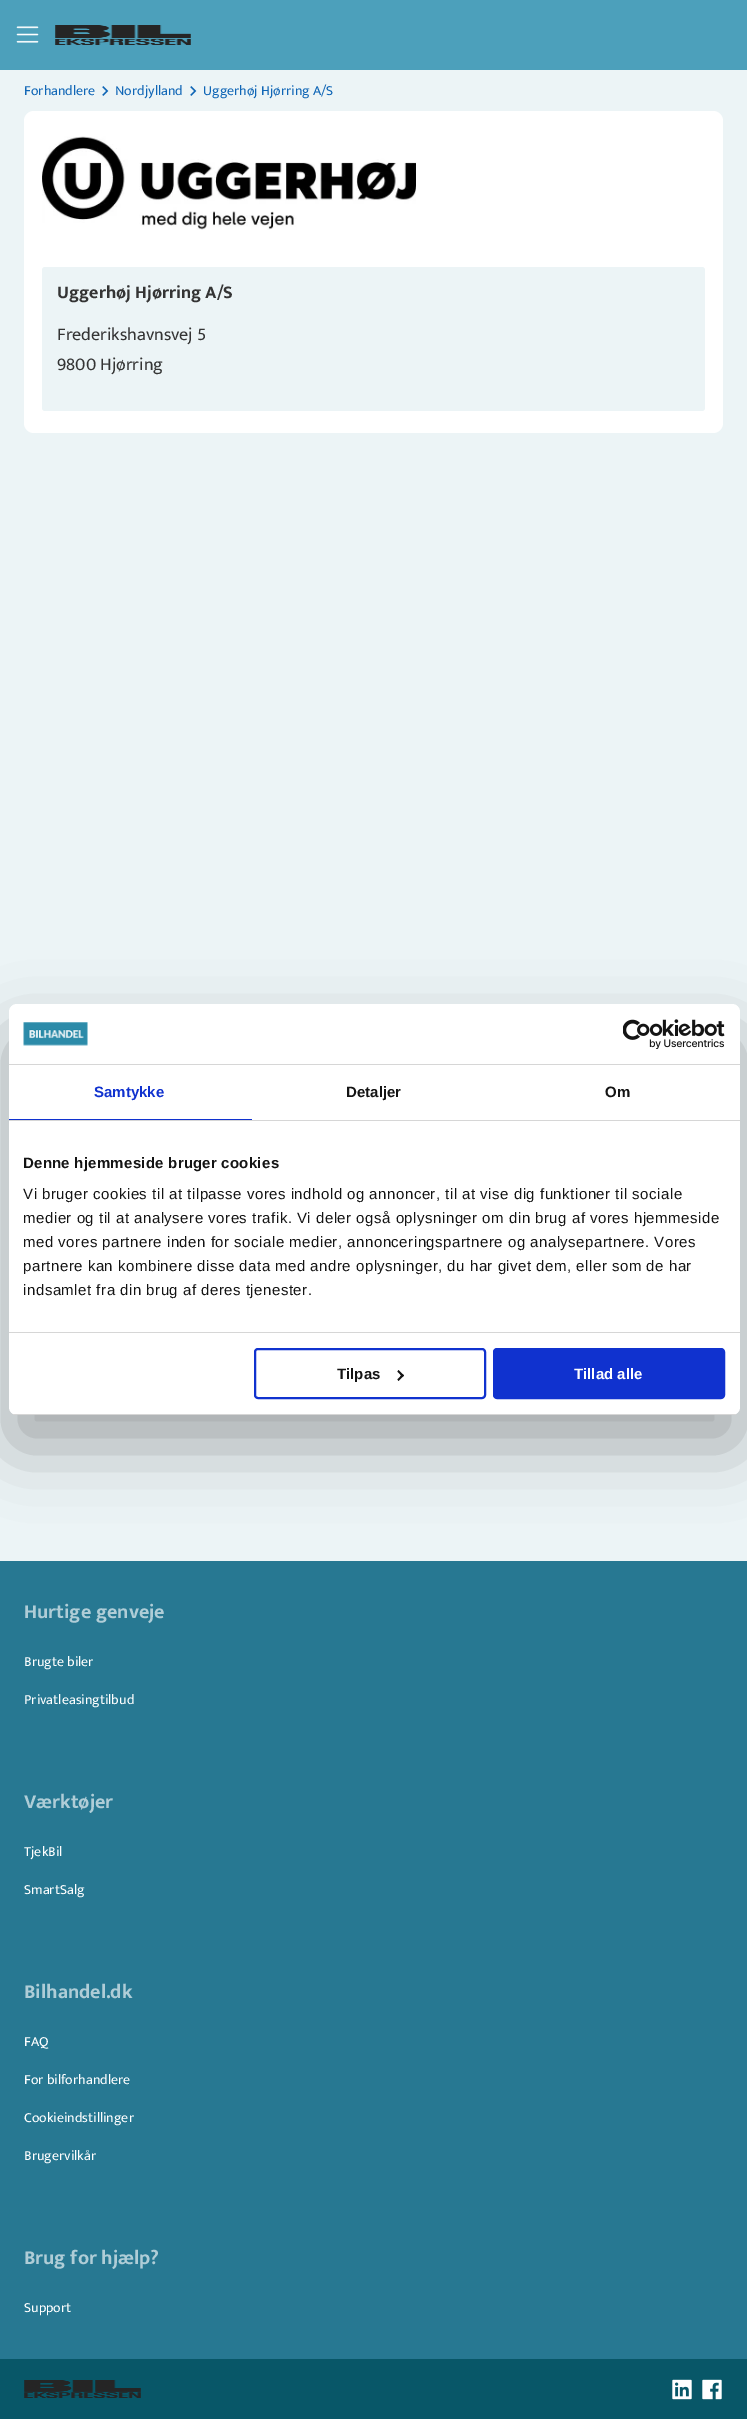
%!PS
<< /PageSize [747 2419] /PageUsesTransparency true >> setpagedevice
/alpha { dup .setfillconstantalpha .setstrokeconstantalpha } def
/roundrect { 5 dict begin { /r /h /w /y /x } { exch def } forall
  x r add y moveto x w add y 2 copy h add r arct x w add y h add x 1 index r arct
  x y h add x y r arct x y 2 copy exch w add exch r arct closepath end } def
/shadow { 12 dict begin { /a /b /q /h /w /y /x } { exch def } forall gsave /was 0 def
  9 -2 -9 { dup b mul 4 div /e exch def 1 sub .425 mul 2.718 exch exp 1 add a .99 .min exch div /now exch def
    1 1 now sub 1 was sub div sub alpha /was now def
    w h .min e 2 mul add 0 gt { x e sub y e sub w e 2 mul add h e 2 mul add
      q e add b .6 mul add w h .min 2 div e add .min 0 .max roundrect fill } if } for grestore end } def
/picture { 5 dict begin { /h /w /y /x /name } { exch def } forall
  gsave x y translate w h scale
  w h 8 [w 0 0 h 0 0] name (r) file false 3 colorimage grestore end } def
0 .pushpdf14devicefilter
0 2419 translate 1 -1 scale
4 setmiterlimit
0.925 0.957 0.965 setrgbcolor
0 0 747 2419 rectfill
0.298 0.627 0.733 setrgbcolor
0 0 747 70 rectfill
(img1.rgb) 16 26 23 17 picture
(img2.rgb) 55 25 136 20 picture
/Mukta-Regular [14 0 0 -14 0 0] selectfont
0.063 0.4 0.714 setrgbcolor
24 95 moveto (Forhandlere) show
(img3.rgb) 102 86 7 10 picture
115 95 moveto (Nordjylland) show
(img3.rgb) 190 86 7 10 picture
203 95 moveto (Uggerhøj Hjørring A/S) show
1 setgray
24 111 699 322 10 roundrect fill
(img4.rgb) 42 136 374 94 picture
0.925 0.957 0.965 setrgbcolor
42 267 663 144 3 roundrect fill
/Mukta-Bold [18 0 0 -18 0 0] selectfont
0.204 setgray
57 298 moveto (Uggerhøj Hjørring A/S) show
/Mukta-Regular [18 0 0 -18 0 0] selectfont
57 340 moveto (Frederikshavnsvej 5) show
57 370 moveto (9800 Hjørring) show
0.153 0.471 0.573 setrgbcolor
0 1561 747 798 rectfill
/Mukta-Bold [20 0 0 -20 0 0] selectfont
0.686 0.804 0.843 setrgbcolor
24 1618 moveto (Hurtige genveje) show
/Mukta-Regular [14 0 0 -14 0 0] selectfont
1 setgray
24 1666 moveto (Brugte biler) show
24 1704 moveto (Privatleasingtilbud) show
/Mukta-Bold [20 0 0 -20 0 0] selectfont
0.686 0.804 0.843 setrgbcolor
24 1808 moveto (Værktøjer) show
/Mukta-Regular [14 0 0 -14 0 0] selectfont
1 setgray
24 1856 moveto (TjekBil) show
24 1894 moveto (SmartSalg) show
/Mukta-Bold [20 0 0 -20 0 0] selectfont
0.686 0.804 0.843 setrgbcolor
24 1998 moveto (Bilhandel.dk) show
/Mukta-Regular [14 0 0 -14 0 0] selectfont
1 setgray
24 2046 moveto (FAQ) show
24 2084 moveto (For bilforhandlere) show
24 2122 moveto (Cookieindstillinger) show
24 2160 moveto (Brugervilkår) show
/Mukta-Bold [20 0 0 -20 0 0] selectfont
0.686 0.804 0.843 setrgbcolor
24 2264 moveto (Brug for hjælp?) show
/Mukta-Regular [14 0 0 -14 0 0] selectfont
1 setgray
24 2312 moveto (Support) show
0.031 0.341 0.408 setrgbcolor
0 2359 747 60 rectfill
(img5.rgb) 24 2380 117 18 picture
(img6.rgb) 672 2379 20 21 picture
(img7.rgb) 702 2379 20 21 picture
0 setgray
9 1036 731 411 8 34 0.3 shadow
1 setgray
9 1004 731 411 8 roundrect fill
0.839 setgray
9 1064 731 1 rectfill
(img8.rgb) 23 1022 65 24 picture
(img9.rgb) 623 1019 102 30 picture
9 1120 731 1 rectfill
0.063 0.196 0.812 setrgbcolor
9 1119 243 1 rectfill
/LiberationSans-Bold [15 0 0 -15 0 0] selectfont
94 1097 moveto (Samtykke) show
0.078 setgray
346 1097 moveto (Detaljer) show
605 1097 moveto (Om) show
0.839 setgray
9 1332 731 1 rectfill
0.078 setgray
23 1168 moveto 0.25 0 (Denne hjemmeside bruger cookies) ashow
/LiberationSans-Regular [15 0 0 -15 0 0] selectfont
23 1199 moveto 0.5 0 (Vi bruger cookies til at tilpasse vores indhold og annoncer, til at vise dig funktioner til sociale) ashow
23 1223 moveto 0.5 0 (medier og til at analysere vores trafik. Vi deler også oplysninger om din brug af vores hjemmeside) ashow
23 1247 moveto 0.5 0 (med vores partnere inden for sociale medier, annonceringspartnere og analysepartnere. Vores) ashow
23 1271 moveto 0.5 0 (partnere kan kombinere disse data med andre oplysninger, du har givet dem, eller som de har) ashow
23 1295 moveto 0.5 0 (indsamlet fra din brug af deres tjenester.) ashow
gsave
9 1004 731 411 8 roundrect clip newpath
0.839 setgray
9 1414 731 1 rectfill
grestore
0.063 0.196 0.812 setrgbcolor
2 setlinewidth
255 1349 230 49 3 roundrect stroke
/LiberationSans-Bold [15 0 0 -15 0 0] selectfont
0.078 setgray
337 1379 moveto (Tilpas) show
newpath 398.5 1370 moveto 404 1375.5 lineto 402.5 1377 lineto 397.5 1371.5 lineto closepath fill
newpath 402.5 1374 moveto 404 1375.5 lineto 398.5 1381 lineto 397.5 1379.5 lineto closepath fill
0.063 0.196 0.812 setrgbcolor
494 1349 230 49 3 roundrect gsave fill grestore
stroke
1 setgray
574 1379 moveto (Tillad alle) show
.poppdf14devicefilter showpage
